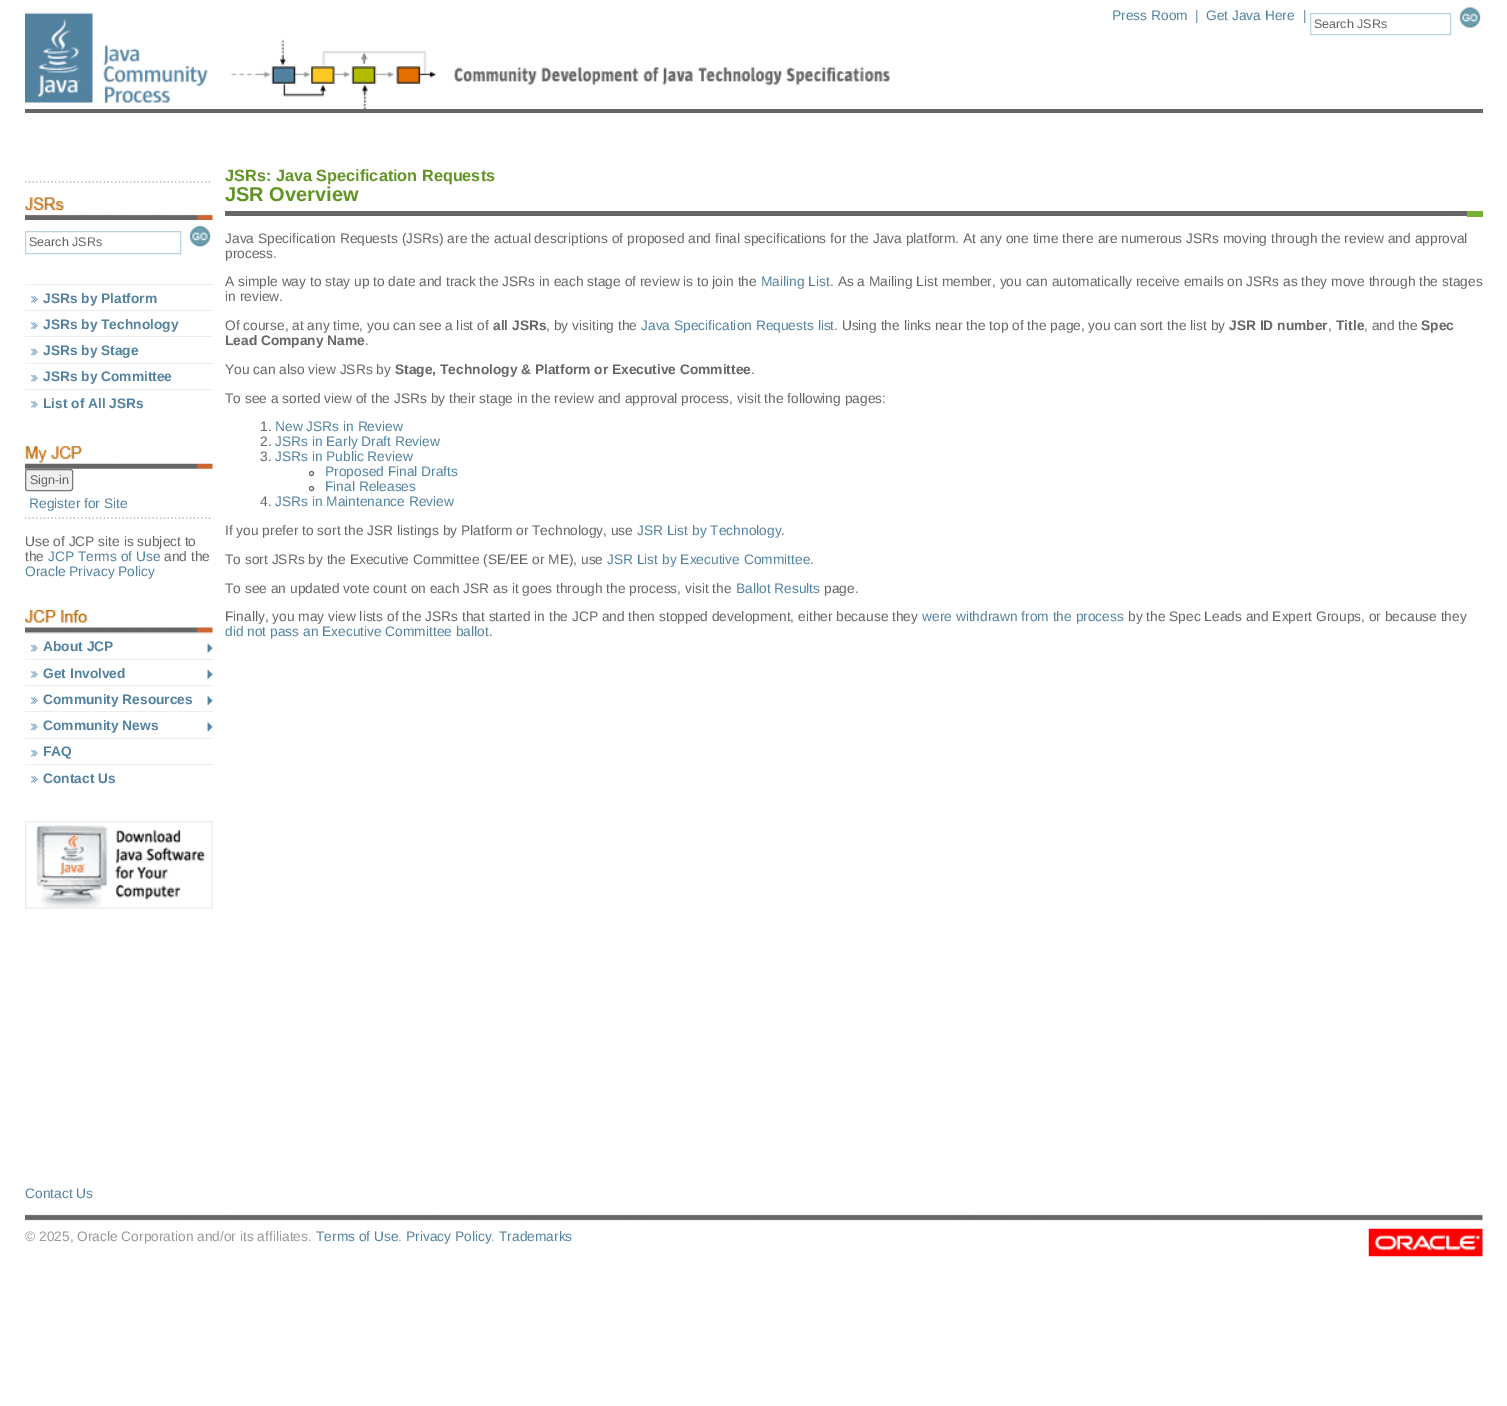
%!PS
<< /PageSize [1507 1406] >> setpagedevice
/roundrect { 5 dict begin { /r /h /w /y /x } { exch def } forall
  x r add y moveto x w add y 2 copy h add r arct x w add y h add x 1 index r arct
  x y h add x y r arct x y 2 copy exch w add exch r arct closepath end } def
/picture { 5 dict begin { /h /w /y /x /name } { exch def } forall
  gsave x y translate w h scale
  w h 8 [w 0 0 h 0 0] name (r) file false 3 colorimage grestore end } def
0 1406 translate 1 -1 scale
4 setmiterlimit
1 setgray
0 0 1507 1406 rectfill
(img1.rgb) 25 12 865 97 picture
/LiberationSans-Regular [13.75 0 0 -13.75 0 0] selectfont
0.325 0.51 0.631 setrgbcolor
1112 20 moveto (Press Room) show
1195 20 moveto (|) show
1206 20 moveto (Get Java Here) show
1303 20 moveto (|) show
0.729 0.835 0.871 setrgbcolor
1310.5 13.5 140 21 rectstroke
/LiberationSans-Regular [12.5 0 0 -12.5 0 0] selectfont
0.4 setgray
1314 28 moveto (Search JSRs) show
(img2.rgb) 1459 7 22 21 picture
25 109 1458 4 rectfill
(img3.rgb) 25 181 186 2 picture
(img4.rgb) 25 197 188 23 picture
0.729 0.835 0.871 setrgbcolor
25.5 231.5 155 22 rectstroke
0.4 setgray
29 246 moveto (Search JSRs) show
(img5.rgb) 189 226 22 21 picture
(img6.rgb) 31 296 7 7 picture
0.929 setgray
25 284 188 1 rectfill
/LiberationSans-Bold [13.75 0 0 -13.75 0 0] selectfont
0.325 0.51 0.631 setrgbcolor
43 303 moveto (JSRs by Platform) show
(img7.rgb) 31 322 7 7 picture
0.929 setgray
25 310 188 1 rectfill
0.325 0.51 0.631 setrgbcolor
43 329 moveto (JSRs by Technology) show
(img8.rgb) 31 348 7 8 picture
0.929 setgray
25 336 188 1 rectfill
0.325 0.51 0.631 setrgbcolor
43 355 moveto (JSRs by Stage) show
(img9.rgb) 31 374 7 8 picture
0.929 setgray
25 363 188 1 rectfill
0.325 0.51 0.631 setrgbcolor
43 381 moveto (JSRs by Committee) show
(img10.rgb) 31 401 7 7 picture
0.929 setgray
25 389 188 1 rectfill
0.325 0.51 0.631 setrgbcolor
43 408 moveto (List of All JSRs) show
(img11.rgb) 25 446 188 23 picture
0.937 setgray
25.5 469.5 47 21 2 roundrect gsave fill grestore
0.463 setgray
stroke
/LiberationSans-Regular [12.5 0 0 -12.5 0 0] selectfont
0.4 setgray
30 484 moveto (Sign-in) show
/LiberationSans-Regular [13.75 0 0 -13.75 0 0] selectfont
0.325 0.51 0.631 setrgbcolor
29 508 moveto (Register for Site) show
(img12.rgb) 25 517 186 2 picture
0.4 setgray
25 546 moveto (Use of JCP site is subject to) show
25 561 moveto (the) show
0.325 0.51 0.631 setrgbcolor
48 561 moveto (JCP Terms of Use) show
0.4 setgray
164 561 moveto (and the) show
0.325 0.51 0.631 setrgbcolor
25 576 moveto (Oracle Privacy Policy) show
(img13.rgb) 25 610 188 23 picture
(img14.rgb) 31 643 182 10 picture
0.929 setgray
25 633 188 1 rectfill
/LiberationSans-Bold [13.75 0 0 -13.75 0 0] selectfont
0.325 0.51 0.631 setrgbcolor
43 651 moveto (About JCP) show
(img15.rgb) 31 670 182 9 picture
0.929 setgray
25 659 188 1 rectfill
0.325 0.51 0.631 setrgbcolor
43 678 moveto (Get Involved) show
(img16.rgb) 31 696 182 9 picture
0.929 setgray
25 685 188 1 rectfill
0.325 0.51 0.631 setrgbcolor
43 704 moveto (Community Resources) show
(img17.rgb) 31 722 182 10 picture
0.929 setgray
25 711 188 1 rectfill
0.325 0.51 0.631 setrgbcolor
43 730 moveto (Community News) show
(img9.rgb) 31 749 7 8 picture
0.929 setgray
25 738 188 1 rectfill
0.325 0.51 0.631 setrgbcolor
43 756 moveto (FAQ) show
(img18.rgb) 31 776 7 7 picture
0.929 setgray
25 764 188 1 rectfill
0.325 0.51 0.631 setrgbcolor
43 783 moveto (Contact Us) show
(img19.rgb) 25 821 188 88 picture
/LiberationSans-Bold [16.25 0 0 -16.25 0 0] selectfont
0.38 0.58 0.137 setrgbcolor
225 181 moveto (JSRs: Java Specification Requests) show
/LiberationSans-Bold [20 0 0 -20 0 0] selectfont
225 201 moveto (JSR Overview) show
0.4 setgray
225 211 1242 5 rectfill
0.471 0.69 0.208 setrgbcolor
1467 211 16 6 rectfill
/LiberationSans-Regular [13.75 0 0 -13.75 0 0] selectfont
0.4 setgray
225 243 moveto (Java Specification Requests \(JSRs\) are the actual descriptions of proposed and final specifications for the Java platform. At any one time there are numerous JSRs moving through the review and approval) show
225 258 moveto (process.) show
225 286 moveto (A simple way to stay up to date and track the JSRs in each stage of review is to join the) show
0.325 0.51 0.631 setrgbcolor
761 286 moveto (Mailing List) show
0.4 setgray
830 286 moveto (. As a Mailing List member, you can automatically receive emails on JSRs as they move through the stages) show
225 301 moveto (in review.) show
225 330 moveto (Of course, at any time, you can see a list of) show
/LiberationSans-Bold [13.75 0 0 -13.75 0 0] selectfont
493 330 moveto (all JSRs) show
/LiberationSans-Regular [13.75 0 0 -13.75 0 0] selectfont
546 330 moveto (, by visiting the) show
0.325 0.51 0.631 setrgbcolor
641 330 moveto (Java Specification Requests list) show
0.4 setgray
834 330 moveto (. Using the links near the top of the page, you can sort the list by) show
/LiberationSans-Bold [13.75 0 0 -13.75 0 0] selectfont
1229 330 moveto (JSR ID number) show
/LiberationSans-Regular [13.75 0 0 -13.75 0 0] selectfont
1328 330 moveto (,) show
/LiberationSans-Bold [13.75 0 0 -13.75 0 0] selectfont
1336 330 moveto (Title) show
/LiberationSans-Regular [13.75 0 0 -13.75 0 0] selectfont
1364 330 moveto (, and the) show
/LiberationSans-Bold [13.75 0 0 -13.75 0 0] selectfont
1421 330 moveto (Spec) show
225 345 moveto (Lead Company Name) show
/LiberationSans-Regular [13.75 0 0 -13.75 0 0] selectfont
365 345 moveto (.) show
225 374 moveto (You can also view JSRs by) show
/LiberationSans-Bold [13.75 0 0 -13.75 0 0] selectfont
395 374 moveto (Stage, Technology & Platform or Executive Committee) show
/LiberationSans-Regular [13.75 0 0 -13.75 0 0] selectfont
751 374 moveto (.) show
225 403 moveto (To see a sorted view of the JSRs by their stage in the review and approval process, visit the following pages:) show
260 431 moveto (1.) show
0.325 0.51 0.631 setrgbcolor
275 431 moveto (New JSRs in Review) show
0.4 setgray
260 446 moveto (2.) show
0.325 0.51 0.631 setrgbcolor
275 446 moveto (JSRs in Early Draft Review) show
0.4 setgray
260 461 moveto (3.) show
0.325 0.51 0.631 setrgbcolor
275 461 moveto (JSRs in Public Review) show
0.4 setgray
newpath 311.5 473.5 2 0 360 arc closepath stroke
0.325 0.51 0.631 setrgbcolor
325 476 moveto (Proposed Final Drafts) show
0.4 setgray
newpath 311.5 488.5 2 0 360 arc closepath stroke
0.325 0.51 0.631 setrgbcolor
325 491 moveto (Final Releases) show
0.4 setgray
260 506 moveto (4.) show
0.325 0.51 0.631 setrgbcolor
275 506 moveto (JSRs in Maintenance Review) show
0.4 setgray
225 535 moveto (If you prefer to sort the JSR listings by Platform or Technology, use) show
0.325 0.51 0.631 setrgbcolor
637 535 moveto (JSR List by Technology) show
0.4 setgray
781 535 moveto (.) show
225 564 moveto (To sort JSRs by the Executive Committee \(SE/EE or ME\), use) show
0.325 0.51 0.631 setrgbcolor
607 564 moveto (JSR List by Executive Committee) show
0.4 setgray
810 564 moveto (.) show
225 593 moveto (To see an updated vote count on each JSR as it goes through the process, visit the) show
0.325 0.51 0.631 setrgbcolor
736 593 moveto (Ballot Results) show
0.4 setgray
824 593 moveto (page.) show
225 621 moveto (Finally, you may view lists of the JSRs that started in the JCP and then stopped development, either because they) show
0.325 0.51 0.631 setrgbcolor
922 621 moveto (were withdrawn from the process) show
0.4 setgray
1128 621 moveto (by the Spec Leads and Expert Groups, or because they) show
0.325 0.51 0.631 setrgbcolor
225 636 moveto (did not pass an Executive Committee ballot) show
0.4 setgray
489 636 moveto (.) show
0.325 0.51 0.631 setrgbcolor
25 1198 moveto (Contact Us) show
(img20.rgb) 25 1214 1458 7 picture
0.6 setgray
25 1241 moveto (© 2025, Oracle Corporation and/or its affiliates.) show
0.325 0.51 0.631 setrgbcolor
316 1241 moveto (Terms of Use) show
0.6 setgray
398 1241 moveto (.) show
0.325 0.51 0.631 setrgbcolor
406 1241 moveto (Privacy Policy) show
0.6 setgray
491 1241 moveto (.) show
0.325 0.51 0.631 setrgbcolor
499 1241 moveto (Trademarks) show
(img21.rgb) 1368 1228 115 29 picture
showpage
